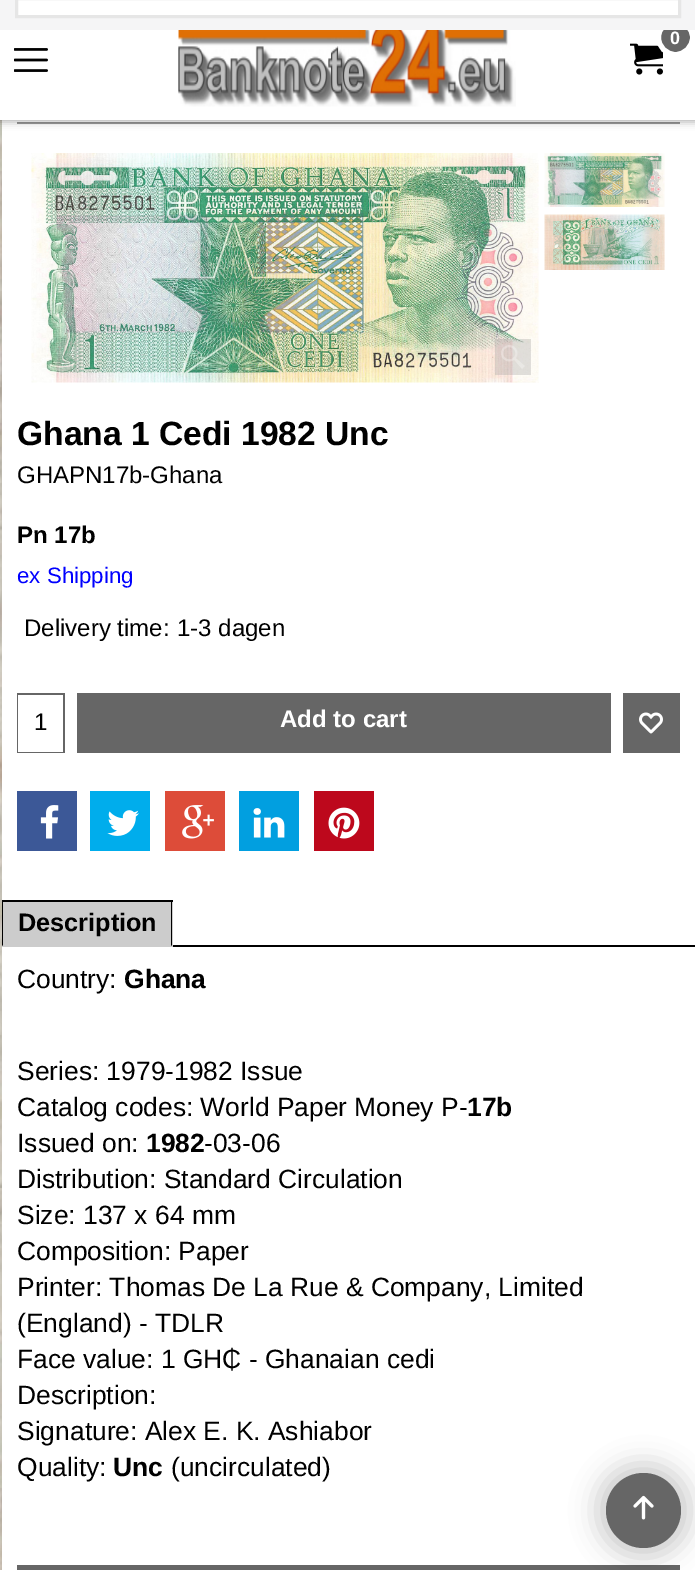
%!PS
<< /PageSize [695 1570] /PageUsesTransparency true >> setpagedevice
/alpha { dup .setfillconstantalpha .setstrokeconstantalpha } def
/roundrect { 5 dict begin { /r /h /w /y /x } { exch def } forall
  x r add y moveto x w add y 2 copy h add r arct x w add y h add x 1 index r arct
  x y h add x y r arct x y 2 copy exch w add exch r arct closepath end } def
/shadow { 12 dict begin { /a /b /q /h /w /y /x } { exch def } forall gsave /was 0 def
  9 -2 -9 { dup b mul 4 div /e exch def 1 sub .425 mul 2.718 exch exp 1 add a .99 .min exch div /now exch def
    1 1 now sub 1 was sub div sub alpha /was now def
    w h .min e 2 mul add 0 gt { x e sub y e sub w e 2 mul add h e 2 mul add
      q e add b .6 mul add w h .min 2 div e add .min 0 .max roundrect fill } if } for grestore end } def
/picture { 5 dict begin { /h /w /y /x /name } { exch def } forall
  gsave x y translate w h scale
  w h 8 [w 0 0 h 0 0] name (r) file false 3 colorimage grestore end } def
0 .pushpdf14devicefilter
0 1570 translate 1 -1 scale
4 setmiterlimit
1 setgray
0 0 695 1570 rectfill
(img1.rgb) 0 120 2 1450 picture
0.6 setgray
17 122 663 2 rectfill
0 setgray
-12 -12 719 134 0 4 0.3 shadow
1 setgray
0 30 695 90 rectfill
(img3.rgb) 630 43 33 32 picture
0.4 setgray
newpath 675.5 37.5 17 0 360 arc closepath gsave fill grestore
1 setgray
5 setlinewidth
stroke
0.961 0.961 0.965 setrgbcolor
0 0 695 30 rectfill
1 setgray
newpath 16.5 -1.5 moveto 679.5 -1.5 lineto 679.5 16.5 lineto 16.5 16.5 lineto closepath gsave fill grestore
0.902 setgray
3 setlinewidth
stroke
(img2.rgb) 178 30 338 77 picture
/LiberationSans-Bold [18 0 0 -18 0 0] selectfont
1 setgray
670 44 moveto (0) show
(img4.rgb) 14 48 34 24 picture
(img5.rgb) 31 153 508 230 picture
0.3 alpha
0.6 setgray
495 339 36 36 rectfill
1 alpha
(img6.rgb) 501 345 24 24 picture
(img7.rgb) 544 153 121 54 picture
(img8.rgb) 544 214 121 56 picture
/LiberationSans-Bold [33.6 0 0 -33.6 0 0] selectfont
0 setgray
17 445 moveto (Ghana 1 Cedi 1982 Unc) show
/LiberationSans-Regular [24 0 0 -24 0 0] selectfont
17 483 moveto (GHAPN17b-Ghana) show
/LiberationSans-Bold [24 0 0 -24 0 0] selectfont
17 543 moveto (Pn 17b) show
/LiberationSans-Regular [22.25 0 0 -22.25 0 0] selectfont
0 0 1 setrgbcolor
17 583 moveto (ex Shipping) show
/LiberationSans-Regular [24 0 0 -24 0 0] selectfont
0 setgray
24 636 moveto (Delivery time:) show
177 636 moveto (1-3 dagen) show
0.4 setgray
17 693 48 60 rectfill
1 setgray
18 695 45 57 rectfill
0 setgray
34 730 moveto (1) show
0.4 setgray
77 693 534 60 rectfill
/LiberationSans-Bold [24 0 0 -24 0 0] selectfont
1 setgray
280 727 moveto (Add to cart) show
0.4 setgray
623 693 57 60 rectfill
(img9.rgb) 639 712 24 22 picture
0.235 0.345 0.592 setrgbcolor
17 791 60 60 rectfill
(img10.rgb) 40 805 19 34 picture
0 0.678 0.925 setrgbcolor
90 791 60 60 rectfill
(img11.rgb) 107 810 32 26 picture
0.867 0.298 0.224 setrgbcolor
165 791 60 60 rectfill
(img12.rgb) 182 805 32 34 picture
0.004 0.624 0.878 setrgbcolor
239 791 60 60 rectfill
(img13.rgb) 253 808 32 30 picture
0.741 0.031 0.11 setrgbcolor
314 791 60 60 rectfill
(img14.rgb) 328 807 32 32 picture
0.8 setgray
2 902 171 45 rectfill
0 setgray
2 900 171 2 rectfill
newpath 172 900 moveto 172 946 lineto 171 945 lineto 171 902 lineto closepath fill
newpath 2 946 moveto 2 900 lineto 3 902 lineto 3 945 lineto closepath fill
/LiberationSans-Bold [25.25 0 0 -25.25 0 0] selectfont
18 931 moveto (Description) show
173 945 522 2 rectfill
/LiberationSans-Regular [26.4 0 0 -26.4 0 0] selectfont
17 988 moveto (Country:) show
/LiberationSans-Bold [26.4 0 0 -26.4 0 0] selectfont
124 988 moveto (Ghana) show
/LiberationSans-Regular [26.4 0 0 -26.4 0 0] selectfont
17 1080 moveto (Series: 1979-1982 Issue) show
17 1116 moveto (Catalog codes: World Paper Money P-) show
/LiberationSans-Bold [26.4 0 0 -26.4 0 0] selectfont
467 1116 moveto (17b) show
/LiberationSans-Regular [26.4 0 0 -26.4 0 0] selectfont
17 1152 moveto (Issued on:) show
/LiberationSans-Bold [26.4 0 0 -26.4 0 0] selectfont
146 1152 moveto (1982) show
/LiberationSans-Regular [26.4 0 0 -26.4 0 0] selectfont
204 1152 moveto (-03-06) show
17 1188 moveto (Distribution: Standard Circulation) show
17 1224 moveto (Size: 137 x 64 mm) show
17 1260 moveto (Composition: Paper) show
17 1296 moveto (Printer: Thomas De La Rue & Company, Limited) show
17 1332 moveto (\(England\) - TDLR) show
17 1368 moveto (Face value: 1 GH₵ - Ghanaian cedi) show
17 1404 moveto (Description:) show
17 1440 moveto (Signature: Alex E. K. Ashiabor) show
17 1476 moveto (Quality:) show
/LiberationSans-Bold [26.4 0 0 -26.4 0 0] selectfont
113 1476 moveto (Unc) show
/LiberationSans-Regular [26.4 0 0 -26.4 0 0] selectfont
171 1476 moveto (\(uncirculated\)) show
0.4 setgray
17 1565 663 5 rectfill
0 setgray
597 1464 93 93 46.5 13 0.2 shadow
0.4 setgray
newpath 643.5 1510.5 37.5 0 360 arc closepath fill
(img15.rgb) 633 1495 21 25 picture
.poppdf14devicefilter showpage
